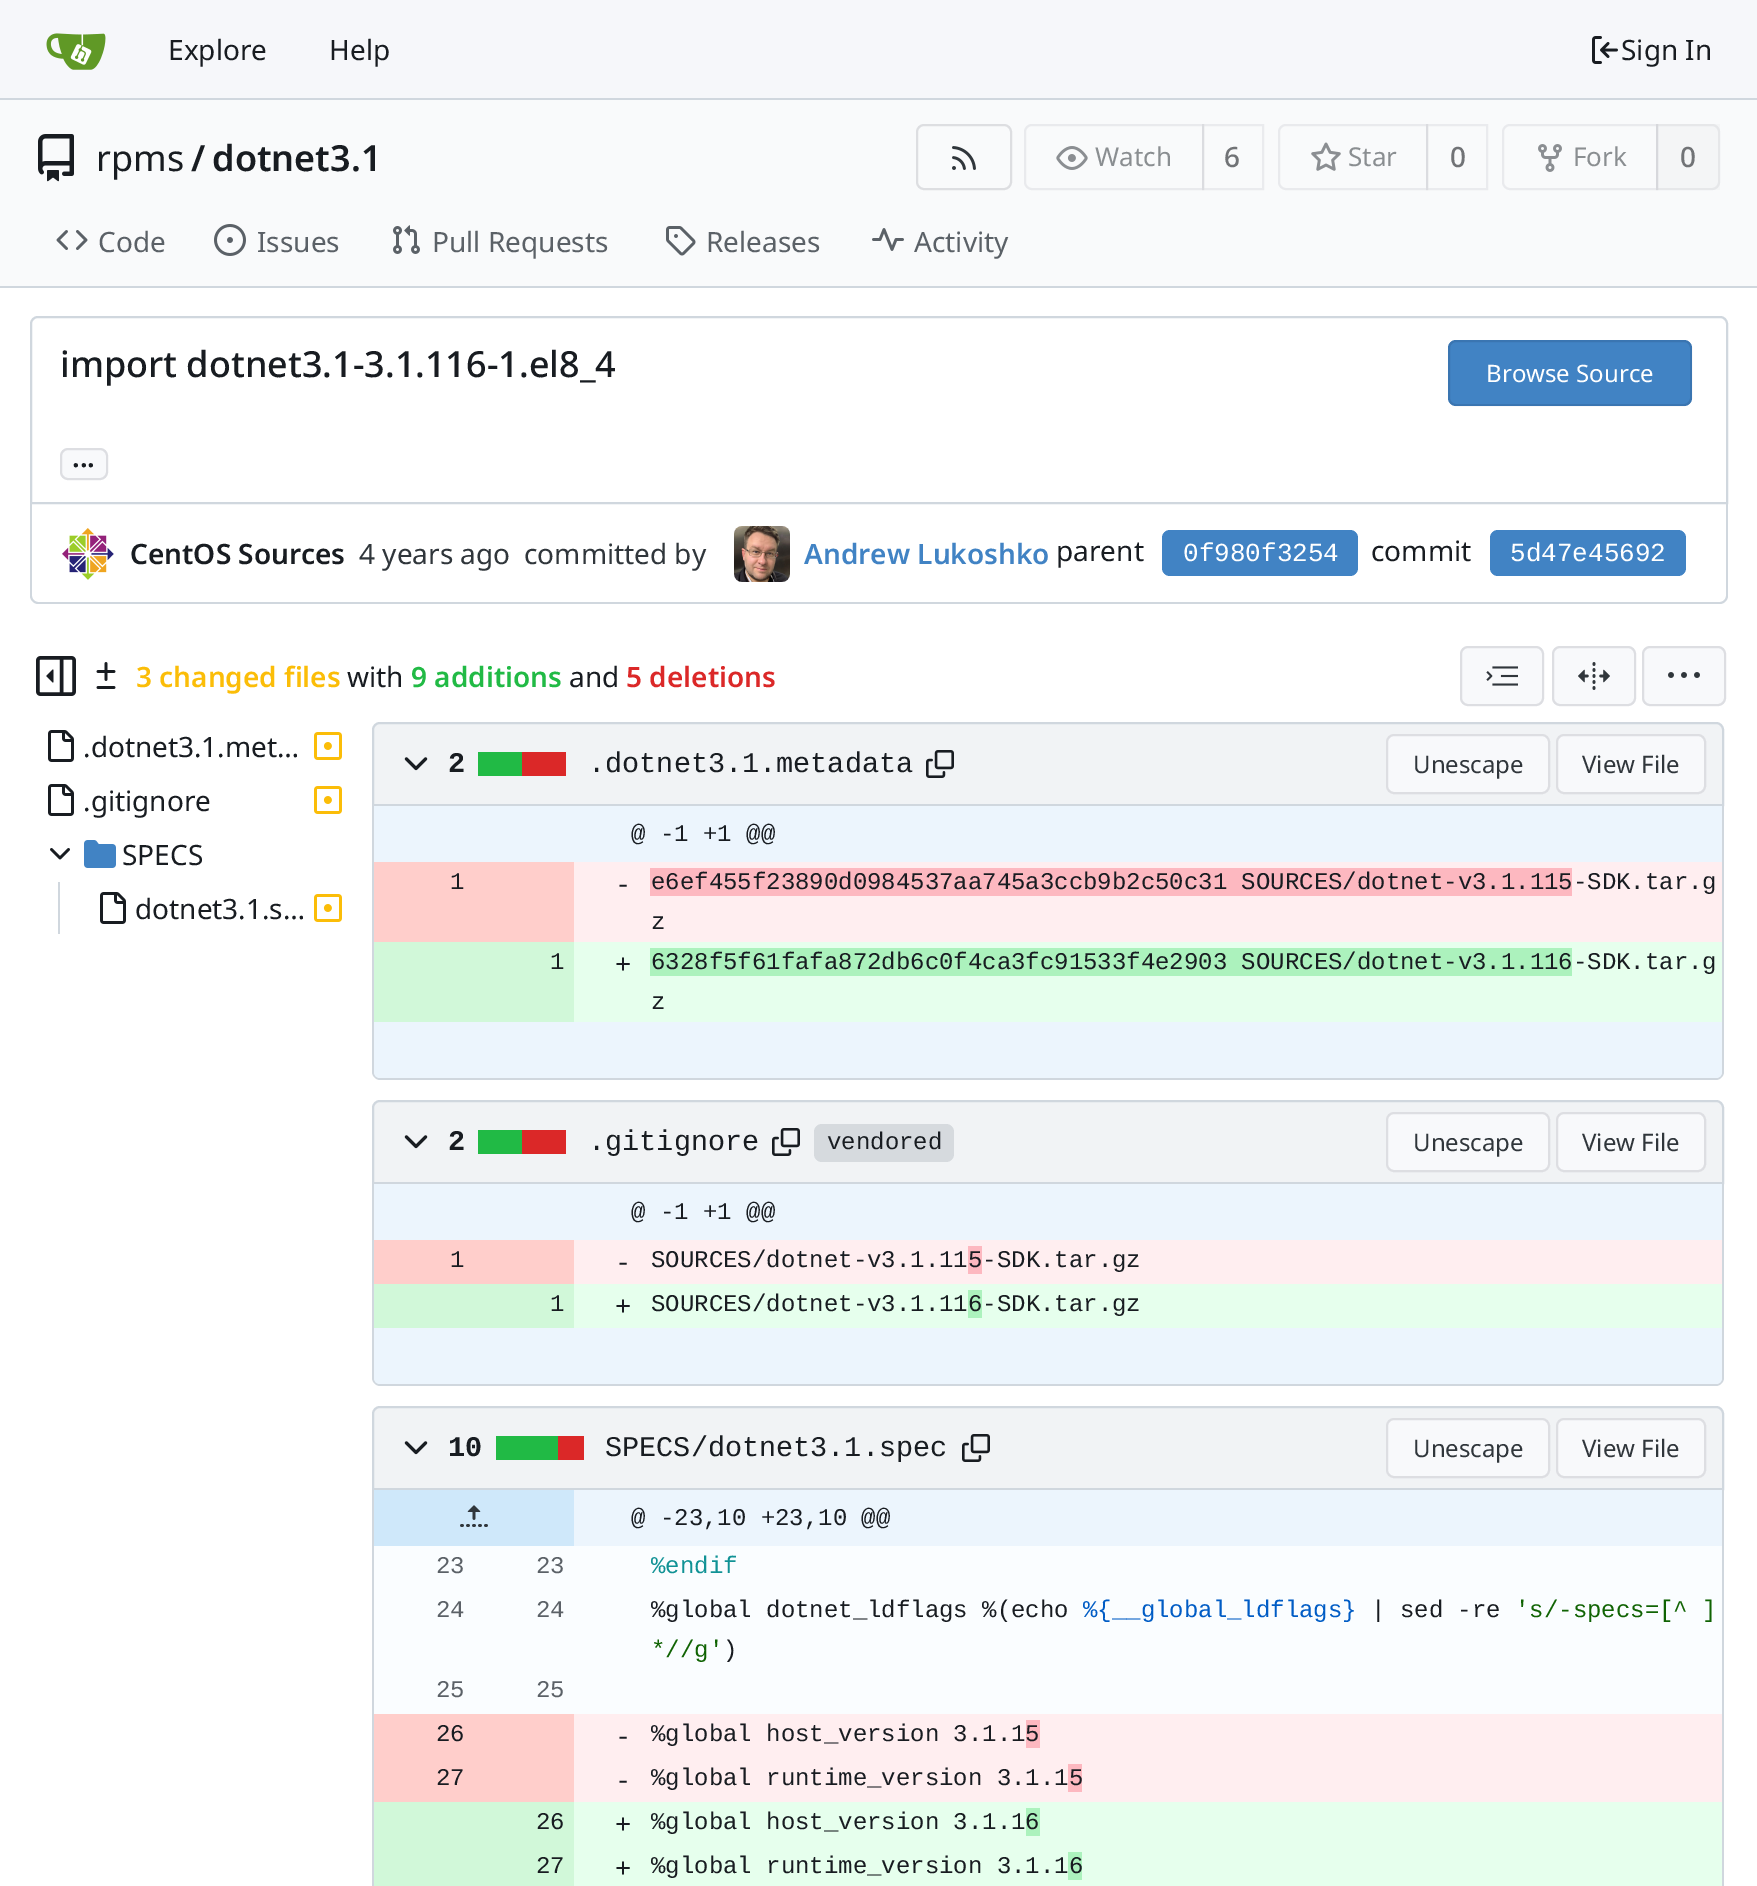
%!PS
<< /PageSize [1757 1886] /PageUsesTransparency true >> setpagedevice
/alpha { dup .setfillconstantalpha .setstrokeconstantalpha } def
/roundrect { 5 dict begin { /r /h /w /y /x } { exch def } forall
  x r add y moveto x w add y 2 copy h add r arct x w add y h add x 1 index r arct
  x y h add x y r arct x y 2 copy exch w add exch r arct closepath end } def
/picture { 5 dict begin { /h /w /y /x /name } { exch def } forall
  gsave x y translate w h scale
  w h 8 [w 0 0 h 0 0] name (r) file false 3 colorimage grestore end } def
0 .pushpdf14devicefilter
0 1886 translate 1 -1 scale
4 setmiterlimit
1 setgray
0 0 1757 1886 rectfill
0.965 0.969 0.98 setrgbcolor
0 0 1757 98 rectfill
0.816 0.843 0.871 setrgbcolor
0 98 1757 2 rectfill
(img1.rgb) 46 33 60 37 picture
/NotoSans-Regular [28 0 0 -28 0 0] selectfont
0.094 0.11 0.129 setrgbcolor
168 60 moveto (Explore) show
329 60 moveto (Help) show
(img2.rgb) 1592 36 26 28 picture
1621 60 moveto (Sign In) show
0.976 0.98 0.984 setrgbcolor
0 100 1757 186 rectfill
(img3.rgb) 38 134 36 48 picture
/NotoSans-Regular [36 0 0 -36 0 0] selectfont
0.094 0.11 0.129 setrgbcolor
96 171 moveto (rpms) show
/NotoSans-SemiBold [36 0 0 -36 0 0] selectfont
191 171 moveto (/) show
212 171 moveto (dotnet3.1) show
0.867 0.871 0.882 setrgbcolor
2 setlinewidth
917 125 94 64 7 roundrect stroke
(img4.rgb) 952 146 24 24 picture
0.914 0.918 0.929 setrgbcolor
newpath 1032 125 moveto 1203 125 lineto 1203 189 lineto 1032 189 lineto 1028 189 1025 186 1025 182 curveto 1025 132 lineto 1025 128 1028 125 1032 125 curveto closepath stroke
(img5.rgb) 1056 146 32 24 picture
/NotoSans-Regular [26 0 0 -26 0 0] selectfont
0.541 0.557 0.569 setrgbcolor
1095 166 moveto (Watch) show
0.06 alpha
0 0 0.09 setrgbcolor
1203 125 60 64 rectstroke
/NotoSans-Medium [28 0 0 -28 0 0] selectfont
1 alpha
0.443 0.451 0.463 setrgbcolor
1224 167 moveto (6) show
0.914 0.918 0.929 setrgbcolor
newpath 1286 125 moveto 1427 125 lineto 1427 189 lineto 1286 189 lineto 1282 189 1279 186 1279 182 curveto 1279 132 lineto 1279 128 1282 125 1286 125 curveto closepath stroke
(img6.rgb) 1311 142 30 29 picture
/NotoSans-Regular [26 0 0 -26 0 0] selectfont
0.541 0.557 0.569 setrgbcolor
1348 166 moveto (Star) show
0.06 alpha
0 0 0.09 setrgbcolor
1427 125 60 64 rectstroke
/NotoSans-Medium [28 0 0 -28 0 0] selectfont
1 alpha
0.443 0.451 0.463 setrgbcolor
1450 167 moveto (0) show
0.914 0.918 0.929 setrgbcolor
newpath 1510 125 moveto 1657 125 lineto 1657 189 lineto 1510 189 lineto 1506 189 1503 186 1503 182 curveto 1503 132 lineto 1503 128 1506 125 1510 125 curveto closepath stroke
(img7.rgb) 1538 144 24 28 picture
/NotoSans-Regular [26 0 0 -26 0 0] selectfont
0.541 0.557 0.569 setrgbcolor
1573 166 moveto (Fork) show
0.04 alpha
0.439 0.443 0.443 setrgbcolor
1656 124 64 66 rectfill
0.11 alpha
0.439 0.443 0.494 setrgbcolor
newpath 1657 125 moveto 1712 125 lineto 1716 125 1719 128 1719 132 curveto 1719 182 lineto 1719 186 1716 189 1712 189 curveto 1657 189 lineto closepath stroke
/NotoSans-Medium [28 0 0 -28 0 0] selectfont
1 alpha
0.443 0.451 0.463 setrgbcolor
1680 167 moveto (0) show
(img8.rgb) 56 230 32 20 picture
/NotoSans-Regular [28 0 0 -28 0 0] selectfont
0.357 0.38 0.404 setrgbcolor
98 252 moveto (Code) show
(img9.rgb) 214 224 32 32 picture
257 252 moveto (Issues) show
(img10.rgb) 393 225 27 29 picture
432 252 moveto (Pull Requests) show
(img11.rgb) 666 226 30 30 picture
706 252 moveto (Releases) show
(img12.rgb) 872 228 32 23 picture
914 252 moveto (Activity) show
0.816 0.843 0.871 setrgbcolor
0 286 1757 2 rectfill
newpath 38 317 moveto 1720 317 lineto 1724 317 1727 320 1727 324 curveto 1727 503 lineto 31 503 lineto 31 324 lineto 31 320 34 317 38 317 curveto closepath stroke
/NotoSans-Medium [36 0 0 -36 0 0] selectfont
0.094 0.11 0.129 setrgbcolor
60 377 moveto (import dotnet3.1-3.1.116-1.el8_4) show
0.255 0.514 0.769 setrgbcolor
1448 340 244 66 8 roundrect fill
0.11 alpha
0 0 0.09 setrgbcolor
1449 341 242 64 7 roundrect stroke
/NotoSans-Regular [24 0 0 -24 0 0] selectfont
1 alpha
1 setgray
1486 382 moveto (Browse Source) show
0.973 0.976 0.984 setrgbcolor
60 448 48 32 8 roundrect fill
0.11 alpha
0 0 0.09 setrgbcolor
61 449 46 30 7 roundrect stroke
/NotoSans-SemiBold [28 0 0 -28 0 0] selectfont
1 alpha
0.094 0.11 0.129 setrgbcolor
72 467 moveto (...) show
0.816 0.843 0.871 setrgbcolor
newpath 30 504 moveto 1728 504 lineto 1728 596 lineto 1728 600 1724 604 1720 604 curveto 38 604 lineto 34 604 30 600 30 596 curveto closepath 32 504 moveto 1726 504 lineto 1726 596 lineto 1726 599 1723 602 1720 602 curveto 38 602 lineto 35 602 32 599 32 596 curveto closepath eofill
(img13.rgb) 62 528 52 52 picture
0.094 0.11 0.129 setrgbcolor
130 564 moveto (CentOS Sources) show
/NotoSans-Regular [28 0 0 -28 0 0] selectfont
0.188 0.212 0.231 setrgbcolor
359 564 moveto (4 years ago) show
524 564 moveto (committed by) show
(img14.rgb) 734 526 56 56 picture
/NotoSans-SemiBold [28 0 0 -28 0 0] selectfont
0.255 0.514 0.769 setrgbcolor
804 564 moveto (Andrew Lukoshko) show
/NotoSans-Regular [28 0 0 -28 0 0] selectfont
0.094 0.11 0.129 setrgbcolor
1056 561 moveto (parent) show
0.255 0.514 0.769 setrgbcolor
1162 530 196 46 8 roundrect fill
/LiberationMono-Regular [26 0 0 -26 0 0] selectfont
1 setgray
1183 561 moveto (0f980f3254) show
/NotoSans-Regular [28 0 0 -28 0 0] selectfont
0.094 0.11 0.129 setrgbcolor
1371 561 moveto (commit) show
0.255 0.514 0.769 setrgbcolor
1490 530 196 46 8 roundrect fill
/LiberationMono-Regular [26 0 0 -26 0 0] selectfont
1 setgray
1510 561 moveto (5d47e45692) show
(img15.rgb) 36 656 40 40 picture
(img16.rgb) 96 662 20 27 picture
/NotoSans-SemiBold [28 0 0 -28 0 0] selectfont
0.984 0.741 0.031 setrgbcolor
136 687 moveto (3 changed files) show
/NotoSans-Regular [28 0 0 -28 0 0] selectfont
0.094 0.11 0.129 setrgbcolor
347 687 moveto (with) show
/NotoSans-SemiBold [28 0 0 -28 0 0] selectfont
0.129 0.729 0.271 setrgbcolor
411 687 moveto (9 additions) show
/NotoSans-Regular [28 0 0 -28 0 0] selectfont
0.094 0.11 0.129 setrgbcolor
569 687 moveto (and) show
/NotoSans-SemiBold [28 0 0 -28 0 0] selectfont
0.859 0.157 0.157 setrgbcolor
626 687 moveto (5 deletions) show
0.973 0.976 0.984 setrgbcolor
1460 646 84 60 8 roundrect fill
0.11 alpha
0 0 0.09 setrgbcolor
1461 647 82 58 7 roundrect stroke
1 alpha
(img17.rgb) 1486 666 32 20 picture
0.973 0.976 0.984 setrgbcolor
1552 646 84 60 8 roundrect fill
0.11 alpha
0 0 0.09 setrgbcolor
1553 647 82 58 7 roundrect stroke
1 alpha
(img18.rgb) 1578 662 32 28 picture
0.973 0.976 0.984 setrgbcolor
1642 646 84 60 8 roundrect fill
0.11 alpha
0 0 0.09 setrgbcolor
1643 647 82 58 7 roundrect stroke
1 alpha
(img19.rgb) 1668 672 32 6 picture
(img20.rgb) 48 730 26 32 picture
/NotoSans-Regular [28 0 0 -28 0 0] selectfont
0.094 0.11 0.129 setrgbcolor
83 757 moveto (.dotnet3.1.met…) show
(img21.rgb) 314 732 28 28 picture
(img20.rgb) 48 784 26 32 picture
83 811 moveto (.gitignore) show
(img21.rgb) 314 786 28 28 picture
(img22.rgb) 50 848 20 12 picture
(img23.rgb) 84 840 32 28 picture
122 865 moveto (SPECS) show
0.816 0.843 0.871 setrgbcolor
58 882 2 52 rectfill
(img20.rgb) 100 892 26 32 picture
0.094 0.11 0.129 setrgbcolor
135 919 moveto (dotnet3.1.s…) show
(img21.rgb) 314 894 28 28 picture
0.945 0.953 0.961 setrgbcolor
newpath 380 723 moveto 1716 723 lineto 1720 723 1723 726 1723 730 curveto 1723 805 lineto 373 805 lineto 373 730 lineto 373 726 376 723 380 723 curveto closepath gsave fill grestore
0.816 0.843 0.871 setrgbcolor
stroke
(img24.rgb) 404 757 24 14 picture
/LiberationMono-Bold [28.5 0 0 -28.5 0 0] selectfont
0.094 0.11 0.129 setrgbcolor
448 772 moveto (2) show
0.859 0.157 0.157 setrgbcolor
522 752 44 24 rectfill
0.129 0.729 0.271 setrgbcolor
478 752 44 24 rectfill
/LiberationMono-Regular [28.5 0 0 -28.5 0 0] selectfont
0.094 0.11 0.129 setrgbcolor
588 772 moveto (.dotnet3.1.metadata) show
(img25.rgb) 926 750 28 28 picture
0.973 0.976 0.984 setrgbcolor
1386 734 164 60 8 roundrect fill
0.11 alpha
0 0 0.09 setrgbcolor
1387 735 162 58 7 roundrect stroke
/NotoSans-Regular [24 0 0 -24 0 0] selectfont
1 alpha
0.188 0.212 0.231 setrgbcolor
1413 773 moveto (Unescape) show
0.973 0.976 0.984 setrgbcolor
1556 734 150 60 8 roundrect fill
0.11 alpha
0 0 0.09 setrgbcolor
1557 735 148 58 7 roundrect stroke
1 alpha
0.188 0.212 0.231 setrgbcolor
1582 773 moveto (View File) show
0.816 0.843 0.871 setrgbcolor
newpath 372 806 moveto 1724 806 lineto 1724 1072 lineto 1724 1076 1720 1080 1716 1080 curveto 380 1080 lineto 376 1080 372 1076 372 1072 curveto closepath 374 806 moveto 1722 806 lineto 1722 1072 lineto 1722 1075 1719 1078 1716 1078 curveto 380 1078 lineto 377 1078 374 1075 374 1072 curveto closepath eofill
0.925 0.961 0.992 setrgbcolor
374 806 1348 56 rectfill
/LiberationMono-Regular [24 0 0 -24 0 0] selectfont
0.094 0.11 0.129 setrgbcolor
631 841 moveto (@ -1 +1 @@) show
1 0.933 0.941 setrgbcolor
574 862 1148 80 rectfill
1 0.808 0.796 setrgbcolor
374 862 200 80 rectfill
0.094 0.11 0.129 setrgbcolor
450 889 moveto (1) show
/LiberationMono-Regular [27 0 0 -27 0 0] selectfont
615 893 moveto (-) show
0.992 0.722 0.753 setrgbcolor
650 868 922 28 rectfill
/LiberationMono-Regular [24 0 0 -24 0 0] selectfont
0.094 0.11 0.129 setrgbcolor
651 889 moveto (e6ef455f23890d0984537aa745a3ccb9b2c50c31 SOURCES/dotnet-v3.1.115-SDK.tar.g) show
651 929 moveto (z) show
0.902 1 0.929 setrgbcolor
574 942 1148 80 rectfill
0.82 0.973 0.851 setrgbcolor
374 942 200 80 rectfill
0.675 0.949 0.741 setrgbcolor
650 948 922 28 rectfill
0.094 0.11 0.129 setrgbcolor
651 969 moveto (6328f5f61fafa872db6c0f4ca3fc91533f4e2903 SOURCES/dotnet-v3.1.116-SDK.tar.g) show
651 1009 moveto (z) show
550 969 moveto (1) show
/LiberationMono-Regular [27 0 0 -27 0 0] selectfont
615 973 moveto (+) show
0.925 0.961 0.992 setrgbcolor
newpath 374 1022 moveto 574 1022 lineto 574 1078 lineto 380 1078 lineto 376.5 1078 374 1075.5 374 1072 curveto closepath fill
574 1022 56 56 rectfill
newpath 630 1022 moveto 1722 1022 lineto 1722 1072 lineto 1722 1075.5 1719.5 1078 1716 1078 curveto 630 1078 lineto closepath fill
0.945 0.953 0.961 setrgbcolor
newpath 380 1101 moveto 1716 1101 lineto 1720 1101 1723 1104 1723 1108 curveto 1723 1183 lineto 373 1183 lineto 373 1108 lineto 373 1104 376 1101 380 1101 curveto closepath gsave fill grestore
0.816 0.843 0.871 setrgbcolor
stroke
(img24.rgb) 404 1135 24 14 picture
/LiberationMono-Bold [28.5 0 0 -28.5 0 0] selectfont
0.094 0.11 0.129 setrgbcolor
448 1150 moveto (2) show
0.859 0.157 0.157 setrgbcolor
522 1130 44 24 rectfill
0.129 0.729 0.271 setrgbcolor
478 1130 44 24 rectfill
/LiberationMono-Regular [28.5 0 0 -28.5 0 0] selectfont
0.094 0.11 0.129 setrgbcolor
588 1150 moveto (.gitignore) show
(img25.rgb) 772 1128 28 28 picture
0.839 0.855 0.871 setrgbcolor
814 1124 140 38 8 roundrect fill
/LiberationMono-Regular [24 0 0 -24 0 0] selectfont
0.094 0.11 0.129 setrgbcolor
827 1149 moveto (vendored) show
0.973 0.976 0.984 setrgbcolor
1386 1112 164 60 8 roundrect fill
0.11 alpha
0 0 0.09 setrgbcolor
1387 1113 162 58 7 roundrect stroke
/NotoSans-Regular [24 0 0 -24 0 0] selectfont
1 alpha
0.188 0.212 0.231 setrgbcolor
1413 1151 moveto (Unescape) show
0.973 0.976 0.984 setrgbcolor
1556 1112 150 60 8 roundrect fill
0.11 alpha
0 0 0.09 setrgbcolor
1557 1113 148 58 7 roundrect stroke
1 alpha
0.188 0.212 0.231 setrgbcolor
1582 1151 moveto (View File) show
0.816 0.843 0.871 setrgbcolor
newpath 372 1184 moveto 1724 1184 lineto 1724 1378 lineto 1724 1382 1720 1386 1716 1386 curveto 380 1386 lineto 376 1386 372 1382 372 1378 curveto closepath 374 1184 moveto 1722 1184 lineto 1722 1378 lineto 1722 1381 1719 1384 1716 1384 curveto 380 1384 lineto 377 1384 374 1381 374 1378 curveto closepath eofill
0.925 0.961 0.992 setrgbcolor
374 1184 1348 56 rectfill
/LiberationMono-Regular [24 0 0 -24 0 0] selectfont
0.094 0.11 0.129 setrgbcolor
631 1219 moveto (@ -1 +1 @@) show
1 0.933 0.941 setrgbcolor
574 1240 1148 44 rectfill
1 0.808 0.796 setrgbcolor
374 1240 200 44 rectfill
0.094 0.11 0.129 setrgbcolor
450 1267 moveto (1) show
/LiberationMono-Regular [27 0 0 -27 0 0] selectfont
615 1271 moveto (-) show
/LiberationMono-Regular [24 0 0 -24 0 0] selectfont
651 1267 moveto (SOURCES/dotnet-v3.1.11) show
0.992 0.722 0.753 setrgbcolor
968 1246 14 28 rectfill
0.094 0.11 0.129 setrgbcolor
968 1267 moveto (5-SDK.tar.gz) show
0.902 1 0.929 setrgbcolor
574 1284 1148 44 rectfill
0.82 0.973 0.851 setrgbcolor
374 1284 200 44 rectfill
0.094 0.11 0.129 setrgbcolor
651 1311 moveto (SOURCES/dotnet-v3.1.11) show
0.675 0.949 0.741 setrgbcolor
968 1290 14 28 rectfill
0.094 0.11 0.129 setrgbcolor
968 1311 moveto (6-SDK.tar.gz) show
550 1311 moveto (1) show
/LiberationMono-Regular [27 0 0 -27 0 0] selectfont
615 1315 moveto (+) show
0.925 0.961 0.992 setrgbcolor
newpath 374 1328 moveto 574 1328 lineto 574 1384 lineto 380 1384 lineto 376.5 1384 374 1381.5 374 1378 curveto closepath fill
574 1328 56 56 rectfill
newpath 630 1328 moveto 1722 1328 lineto 1722 1378 lineto 1722 1381.5 1719.5 1384 1716 1384 curveto 630 1384 lineto closepath fill
0.945 0.953 0.961 setrgbcolor
newpath 380 1407 moveto 1716 1407 lineto 1720 1407 1723 1410 1723 1414 curveto 1723 1489 lineto 373 1489 lineto 373 1414 lineto 373 1410 376 1407 380 1407 curveto closepath gsave fill grestore
0.816 0.843 0.871 setrgbcolor
stroke
(img24.rgb) 404 1441 24 14 picture
/LiberationMono-Bold [28.5 0 0 -28.5 0 0] selectfont
0.094 0.11 0.129 setrgbcolor
448 1456 moveto (10) show
0.859 0.157 0.157 setrgbcolor
558 1436 26 24 rectfill
0.129 0.729 0.271 setrgbcolor
496 1436 62 24 rectfill
/LiberationMono-Regular [28.5 0 0 -28.5 0 0] selectfont
0.094 0.11 0.129 setrgbcolor
605 1456 moveto (SPECS/dotnet3.1.spec) show
(img25.rgb) 962 1434 28 28 picture
0.973 0.976 0.984 setrgbcolor
1386 1418 164 60 8 roundrect fill
0.11 alpha
0 0 0.09 setrgbcolor
1387 1419 162 58 7 roundrect stroke
/NotoSans-Regular [24 0 0 -24 0 0] selectfont
1 alpha
0.188 0.212 0.231 setrgbcolor
1413 1457 moveto (Unescape) show
0.973 0.976 0.984 setrgbcolor
1556 1418 150 60 8 roundrect fill
0.11 alpha
0 0 0.09 setrgbcolor
1557 1419 148 58 7 roundrect stroke
1 alpha
0.188 0.212 0.231 setrgbcolor
1582 1457 moveto (View File) show
0.816 0.843 0.871 setrgbcolor
newpath 372 1490 moveto 1724 1490 lineto 1724 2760 lineto 1724 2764 1720 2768 1716 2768 curveto 380 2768 lineto 376 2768 372 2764 372 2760 curveto closepath 374 1490 moveto 1722 1490 lineto 1722 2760 lineto 1722 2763 1719 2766 1716 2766 curveto 380 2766 lineto 377 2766 374 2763 374 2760 curveto closepath eofill
0.98 0.992 1 setrgbcolor
374 1546 1348 168 rectfill
0.925 0.961 0.992 setrgbcolor
574 1490 1148 56 rectfill
0.812 0.91 0.98 setrgbcolor
374 1490 200 56 rectfill
(img26.rgb) 460 1505 28 22 picture
/LiberationMono-Regular [24 0 0 -24 0 0] selectfont
0.094 0.11 0.129 setrgbcolor
631 1525 moveto (@ -23,10 +23,10 @@) show
0.357 0.38 0.404 setrgbcolor
436 1573 moveto (23) show
536 1573 moveto (23) show
0.063 0.573 0.584 setrgbcolor
651 1573 moveto (%endif) show
0.357 0.38 0.404 setrgbcolor
436 1617 moveto (24) show
536 1617 moveto (24) show
0.094 0.11 0.129 setrgbcolor
651 1617 moveto (%global dotnet_ldflags %\(echo) show
0 0.361 0.773 setrgbcolor
1083 1617 moveto (%{__global_ldflags}) show
0.094 0.11 0.129 setrgbcolor
1371 1617 moveto (| sed -re) show
0.063 0.388 0.012 setrgbcolor
1515 1617 moveto ('s/-specs=[^ ]) show
651 1657 moveto (*//g') show
0.094 0.11 0.129 setrgbcolor
723 1657 moveto (\)) show
0.357 0.38 0.404 setrgbcolor
436 1697 moveto (25) show
536 1697 moveto (25) show
1 0.933 0.941 setrgbcolor
574 1714 1148 88 rectfill
1 0.808 0.796 setrgbcolor
374 1714 200 44 rectfill
0.094 0.11 0.129 setrgbcolor
436 1741 moveto (26) show
/LiberationMono-Regular [27 0 0 -27 0 0] selectfont
615 1745 moveto (-) show
/LiberationMono-Regular [24 0 0 -24 0 0] selectfont
651 1741 moveto (%global host_version 3.1.1) show
0.992 0.722 0.753 setrgbcolor
1026 1720 14 28 rectfill
0.094 0.11 0.129 setrgbcolor
1025 1741 moveto (5) show
1 0.808 0.796 setrgbcolor
374 1758 200 44 rectfill
0.094 0.11 0.129 setrgbcolor
436 1785 moveto (27) show
/LiberationMono-Regular [27 0 0 -27 0 0] selectfont
615 1789 moveto (-) show
/LiberationMono-Regular [24 0 0 -24 0 0] selectfont
651 1785 moveto (%global runtime_version 3.1.1) show
0.992 0.722 0.753 setrgbcolor
1068 1764 14 28 rectfill
0.094 0.11 0.129 setrgbcolor
1069 1785 moveto (5) show
0.902 1 0.929 setrgbcolor
574 1802 1148 84 rectfill
0.82 0.973 0.851 setrgbcolor
374 1802 200 44 rectfill
0.094 0.11 0.129 setrgbcolor
651 1829 moveto (%global host_version 3.1.1) show
0.675 0.949 0.741 setrgbcolor
1026 1808 14 28 rectfill
0.094 0.11 0.129 setrgbcolor
1025 1829 moveto (6) show
536 1829 moveto (26) show
/LiberationMono-Regular [27 0 0 -27 0 0] selectfont
615 1833 moveto (+) show
0.82 0.973 0.851 setrgbcolor
374 1846 200 40 rectfill
/LiberationMono-Regular [24 0 0 -24 0 0] selectfont
0.094 0.11 0.129 setrgbcolor
651 1873 moveto (%global runtime_version 3.1.1) show
0.675 0.949 0.741 setrgbcolor
1068 1852 14 28 rectfill
0.094 0.11 0.129 setrgbcolor
1069 1873 moveto (6) show
536 1873 moveto (27) show
/LiberationMono-Regular [27 0 0 -27 0 0] selectfont
615 1877 moveto (+) show
.poppdf14devicefilter showpage
